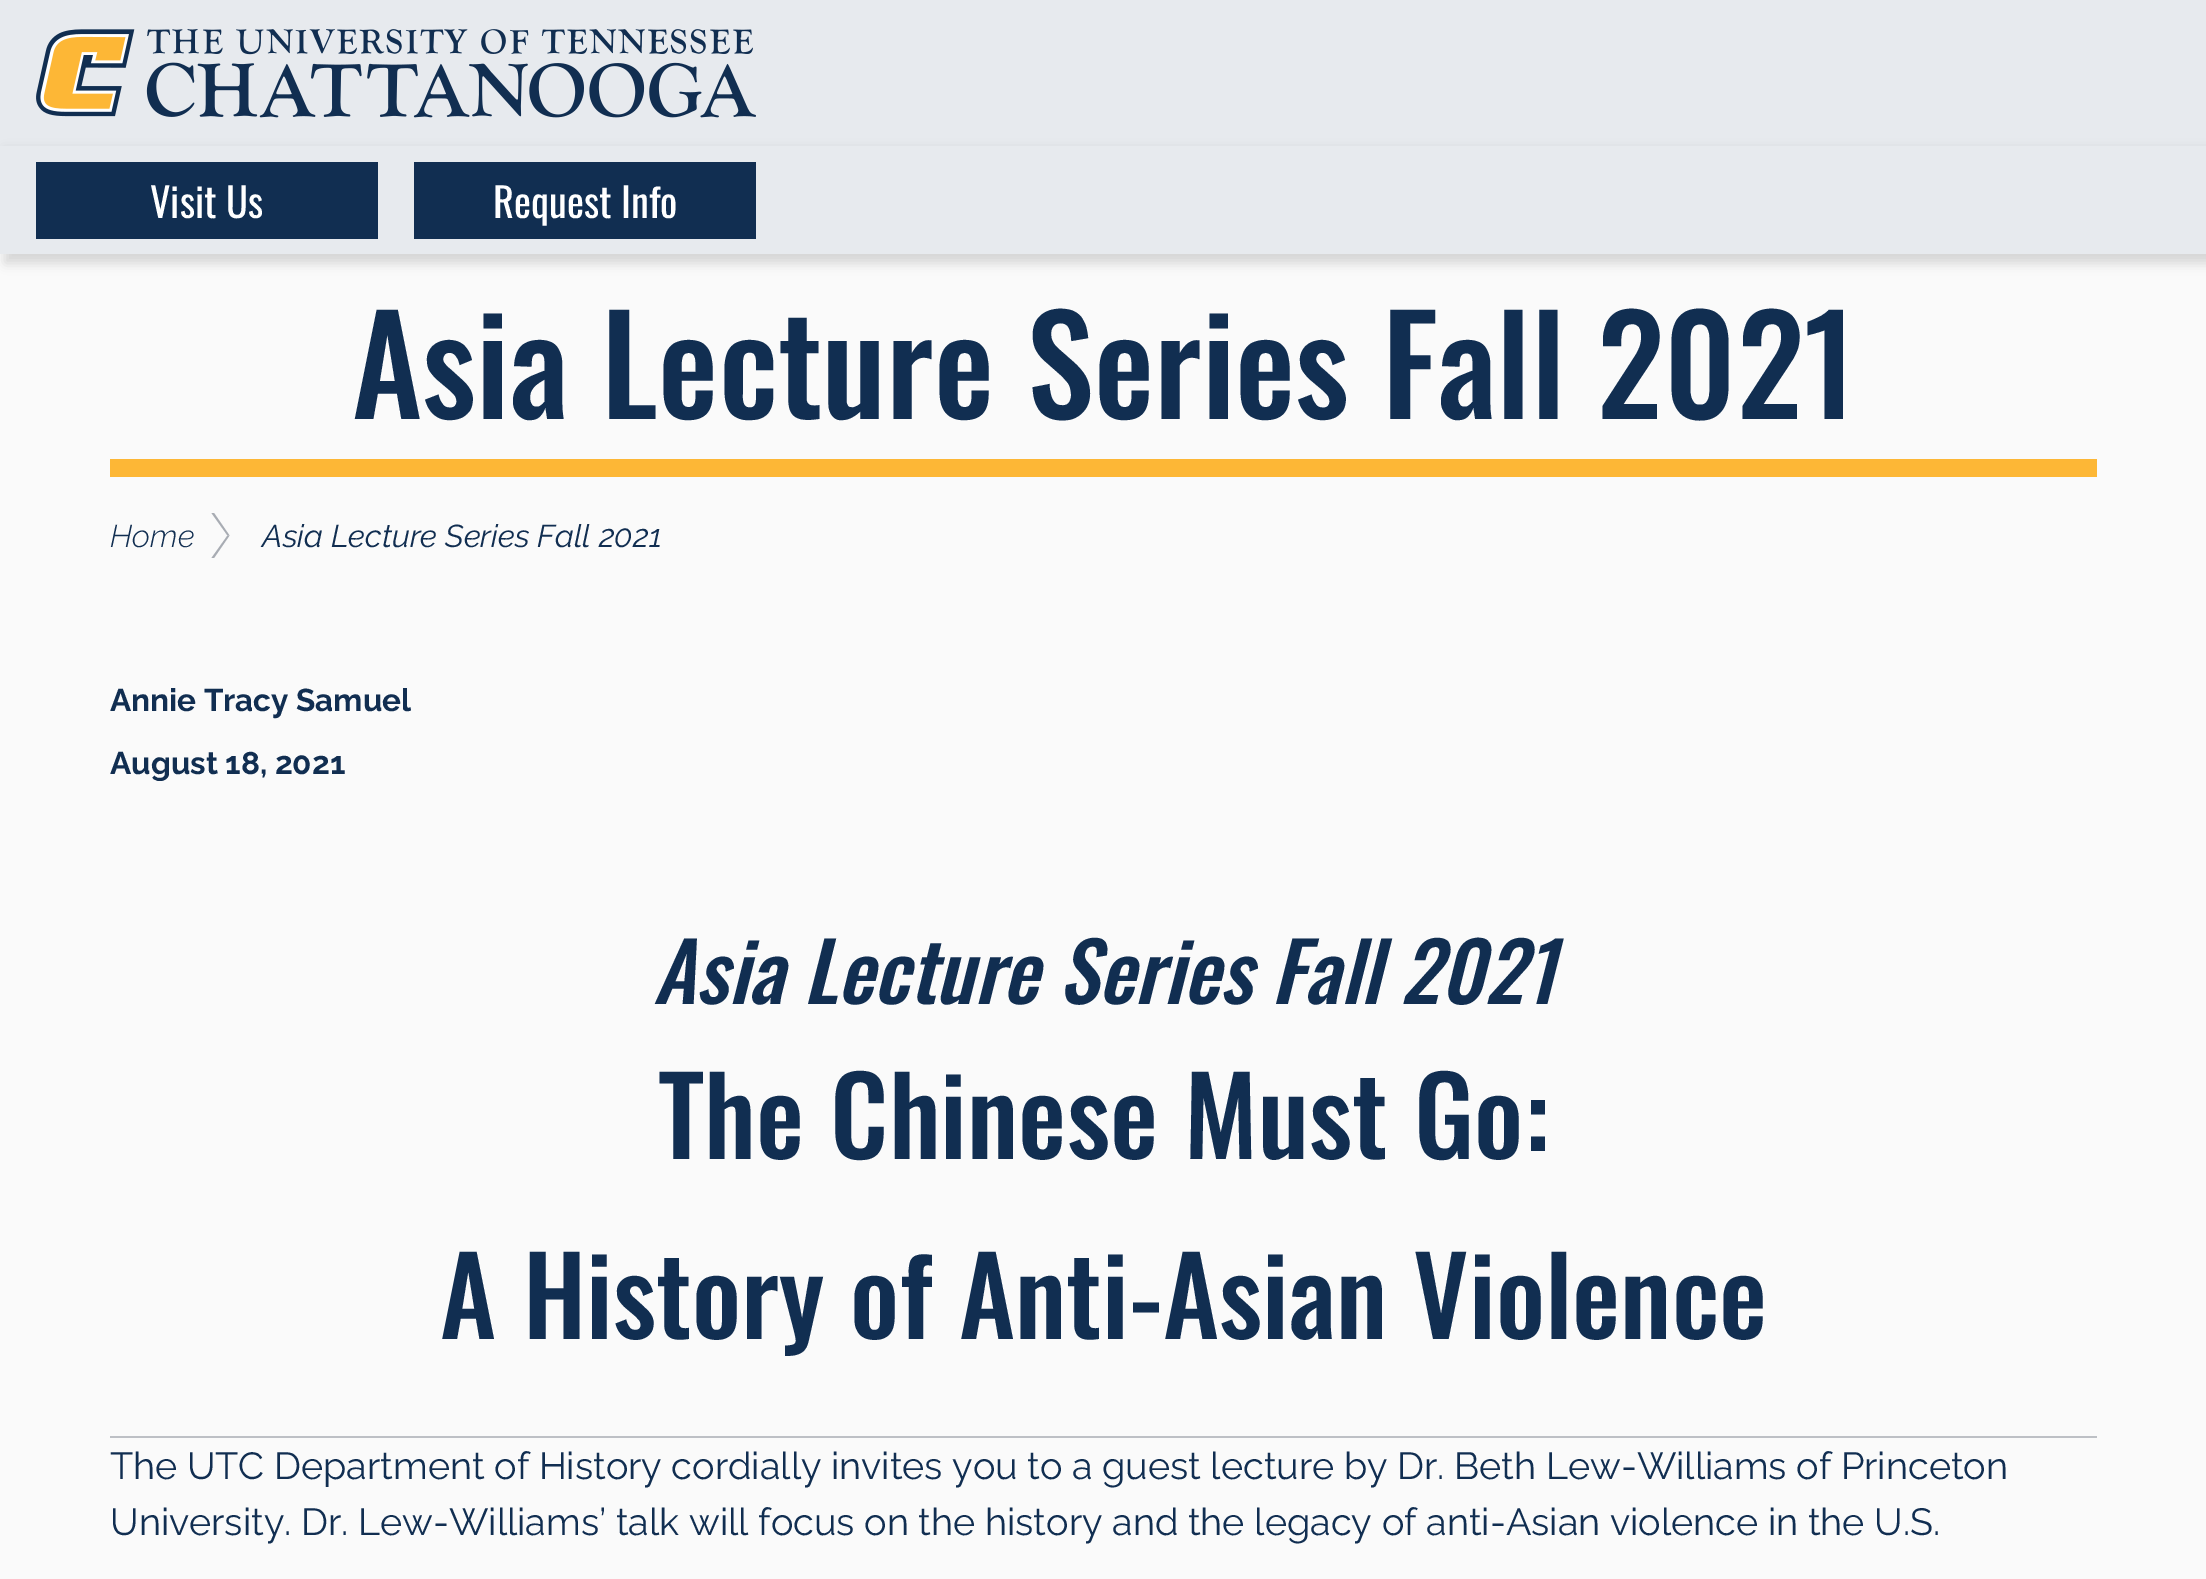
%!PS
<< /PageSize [2206 1579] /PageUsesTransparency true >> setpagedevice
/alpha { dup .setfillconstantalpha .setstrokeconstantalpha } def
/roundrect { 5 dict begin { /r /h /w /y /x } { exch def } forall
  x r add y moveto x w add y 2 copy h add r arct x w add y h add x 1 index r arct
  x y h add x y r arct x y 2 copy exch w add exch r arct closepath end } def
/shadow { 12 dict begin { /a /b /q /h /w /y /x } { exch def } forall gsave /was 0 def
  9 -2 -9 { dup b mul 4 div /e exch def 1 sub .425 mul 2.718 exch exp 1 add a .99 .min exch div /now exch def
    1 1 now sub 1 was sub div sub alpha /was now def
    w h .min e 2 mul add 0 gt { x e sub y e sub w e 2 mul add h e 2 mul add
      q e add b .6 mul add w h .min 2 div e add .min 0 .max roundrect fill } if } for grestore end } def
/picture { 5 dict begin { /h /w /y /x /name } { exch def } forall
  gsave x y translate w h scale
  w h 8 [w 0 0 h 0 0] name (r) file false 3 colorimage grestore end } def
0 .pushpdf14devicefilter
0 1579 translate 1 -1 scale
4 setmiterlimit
0.98 setgray
0 0 2206 1579 rectfill
0.906 0.918 0.933 setrgbcolor
0 0 2206 254 rectfill
(img1.rgb) 36 29 720 89 picture
gsave
newpath 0 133 moveto 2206 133 lineto 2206 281 lineto 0 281 lineto closepath 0 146 moveto 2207 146 lineto 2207 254 lineto 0 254 lineto closepath eoclip newpath
0 setgray
5 151 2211 112 0 5.5 0.15 shadow
grestore
0.067 0.18 0.318 setrgbcolor
36 162 342 77 rectfill
/Oswald-Regular [40.5 0 0 -40.5 0 0] selectfont
1 setgray
150 218 moveto (Visit Us) show
0.067 0.18 0.318 setrgbcolor
414 162 342 77 rectfill
1 setgray
493 218 moveto (Request Info) show
0.992 0.718 0.212 setrgbcolor
110 459 1987 18 rectfill
/Oswald-Medium [135 0 0 -135 0 0] selectfont
0.067 0.18 0.318 setrgbcolor
352 419 moveto (Asia Lecture Series Fall 2021) show
/Raleway-LightItalic [31.5 0 0 -31.5 0 0] selectfont
110 547 moveto (Home) show
0.659 0.675 0.702 setrgbcolor
newpath 211.5 513 moveto 214 513 lineto 229.5 535.5 lineto 227.5 535.5 lineto closepath fill
newpath 227.5 535.5 moveto 229.5 535.5 lineto 214 558 lineto 211.5 558 lineto closepath fill
/Raleway-Italic [31.5 0 0 -31.5 0 0] selectfont
0.067 0.18 0.318 setrgbcolor
262 547 moveto (Asia Lecture Series Fall 2021) show
/Raleway-Bold [31.5 0 0 -31.5 0 0] selectfont
110 711 moveto (Annie Tracy Samuel) show
110 774 moveto (August 18, 2021) show
/Oswald-MediumItalic [81 0 0 -81 0 0] selectfont
653 1004 moveto (Asia Lecture Series Fall 2021) show
/Oswald-Medium [108 0 0 -108 0 0] selectfont
658 1159 moveto (The Chinese Must Go:) show
440 1339 moveto (A History of Anti-Asian Violence) show
0.741 0.753 0.773 setrgbcolor
110 1436 1987 2 rectfill
/Raleway-Regular [37.8 0 0 -37.8 0 0] selectfont
0.067 0.18 0.318 setrgbcolor
110 1479 moveto -0.1 0 32 (The UTC Department of History cordially invites you to a guest lecture by Dr. Beth Lew-Williams of Princeton) widthshow
110 1535 moveto (University. Dr. Lew-Williams’ talk will focus on the history and the legacy of anti-Asian violence in the U.S.) show
.poppdf14devicefilter showpage
